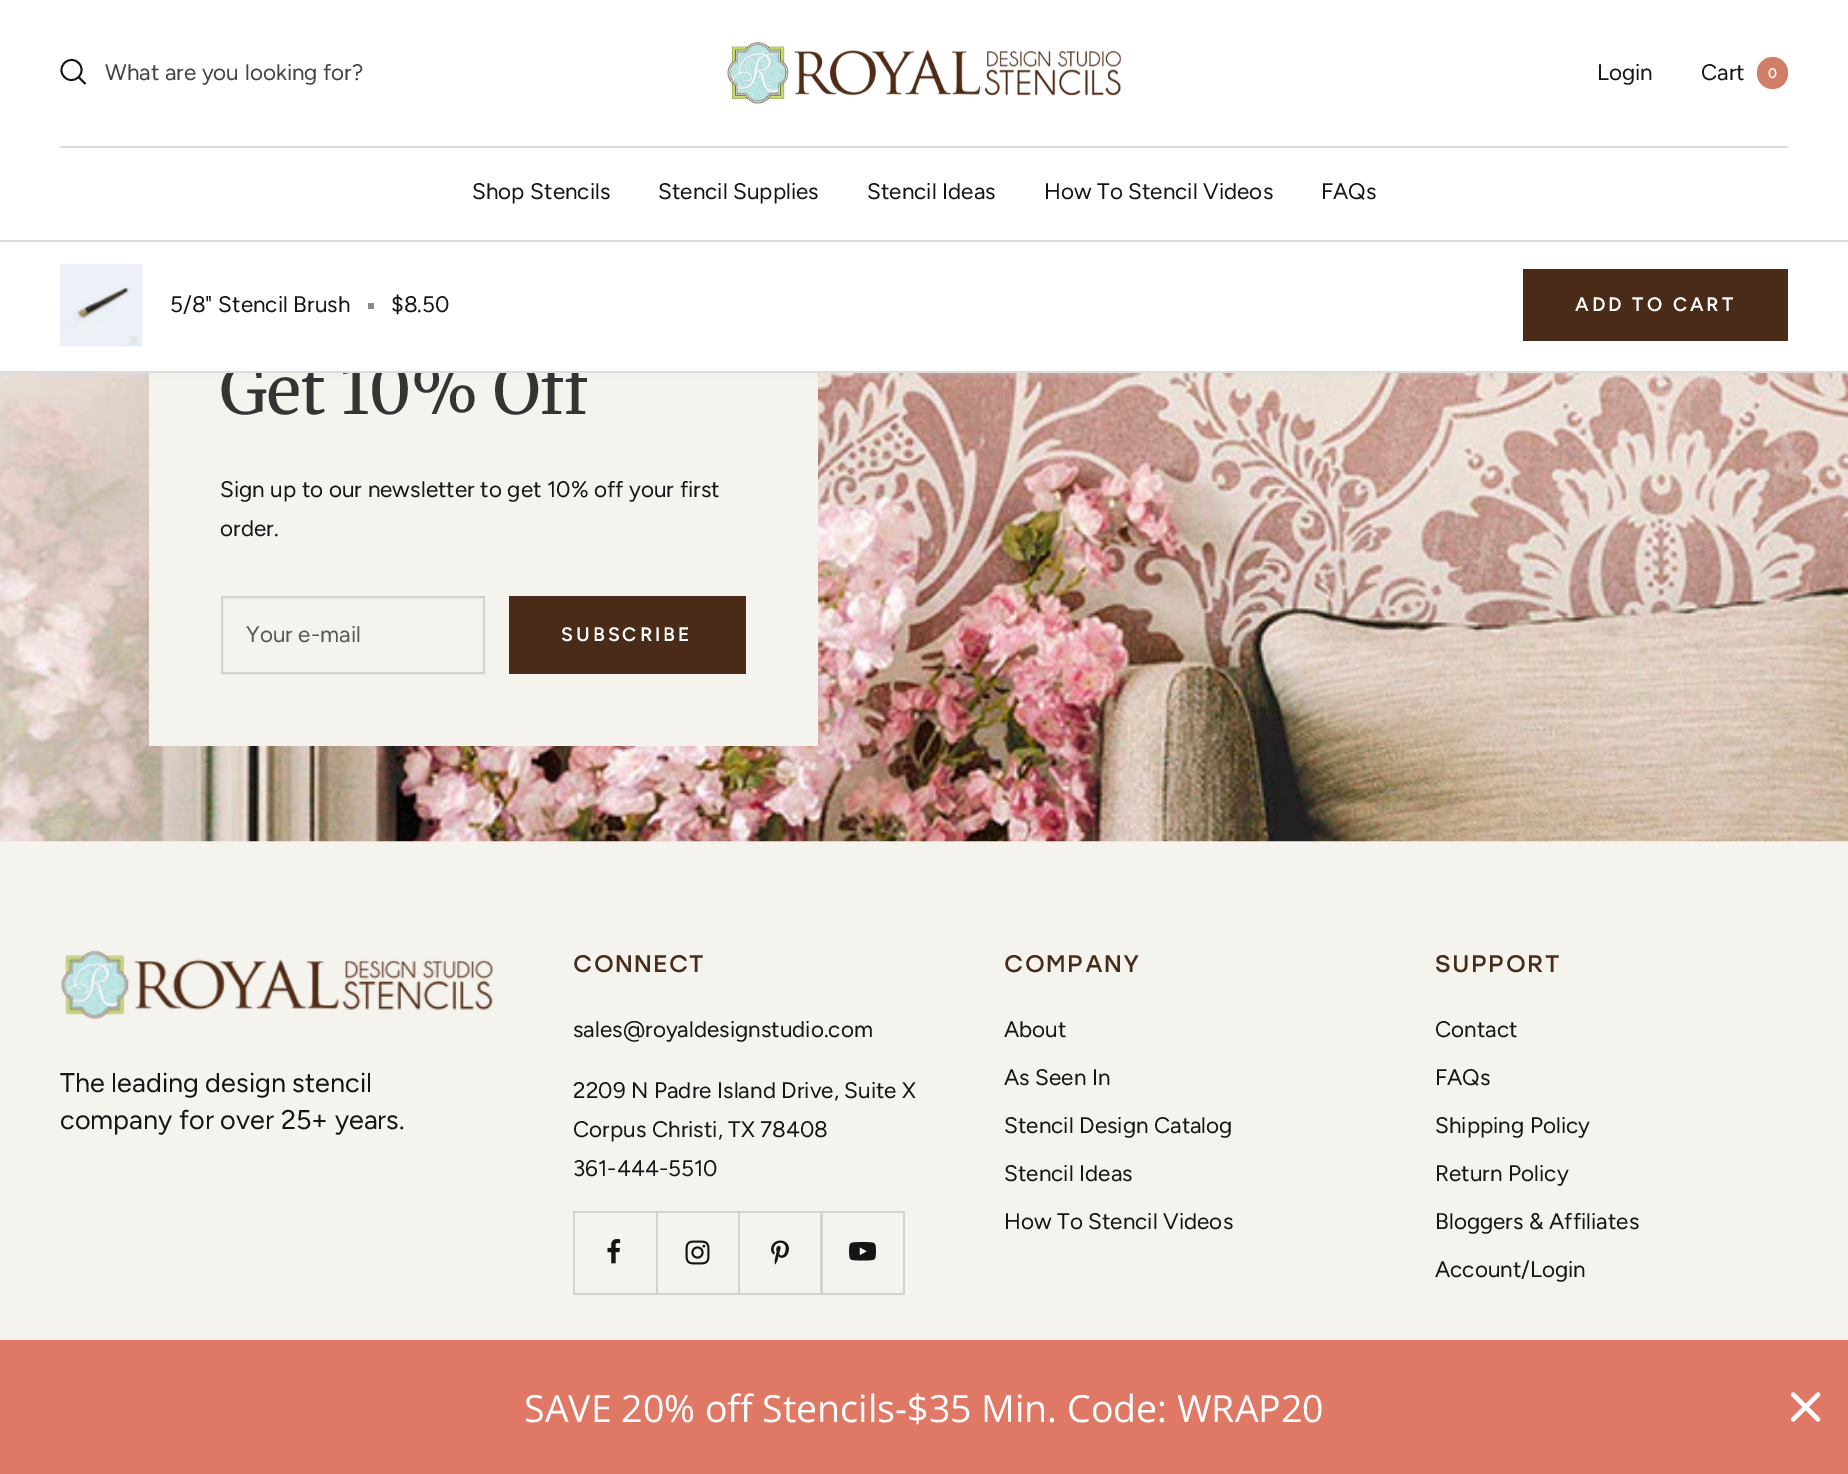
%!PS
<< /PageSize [1848 1474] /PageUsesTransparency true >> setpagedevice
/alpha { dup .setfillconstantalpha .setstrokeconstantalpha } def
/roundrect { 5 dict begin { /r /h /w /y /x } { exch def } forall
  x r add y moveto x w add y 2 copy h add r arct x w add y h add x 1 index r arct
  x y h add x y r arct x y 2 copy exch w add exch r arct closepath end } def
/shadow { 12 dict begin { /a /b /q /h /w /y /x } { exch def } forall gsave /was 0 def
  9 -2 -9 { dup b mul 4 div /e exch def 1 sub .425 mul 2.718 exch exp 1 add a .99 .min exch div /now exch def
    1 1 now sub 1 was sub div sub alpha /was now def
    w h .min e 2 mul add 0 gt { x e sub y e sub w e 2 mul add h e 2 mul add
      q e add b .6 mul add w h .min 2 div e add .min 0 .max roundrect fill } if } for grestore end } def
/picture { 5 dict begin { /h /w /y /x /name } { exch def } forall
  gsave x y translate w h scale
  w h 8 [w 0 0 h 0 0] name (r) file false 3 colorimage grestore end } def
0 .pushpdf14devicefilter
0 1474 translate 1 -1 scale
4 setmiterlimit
0.961 0.953 0.929 setrgbcolor
0 0 1848 1474 rectfill
1 setgray
0 0 1848 240 rectfill
0.082 setgray
1.8 setlinewidth
newpath 78.5 77 moveto 88 67.5 74 53.5 64.5 63 curveto 55 72.5 69 86.5 78.5 77 curveto closepath 78.5 77 moveto 85.5 84 lineto stroke
/Figtree-Regular [22.5 0 0 -22.5 0 0] selectfont
0.267 setgray
105 80 moveto (What are you looking for?) show
(img1.rgb) 727 42 395 62 picture
0.082 setgray
1597 80 moveto (Login) show
1701 80 moveto (Cart) show
0.82 0.494 0.412 setrgbcolor
1757 57 31 32 15.5 roundrect fill
/Figtree-SemiBold [14 0 0 -14 0 0] selectfont
1 setgray
1768 78 moveto (0) show
0.863 setgray
60 146 1728 2 rectfill
/Figtree-Regular [22.5 0 0 -22.5 0 0] selectfont
0.082 setgray
472 199 moveto (Shop Stencils) show
658 199 moveto (Stencil Supplies) show
867 199 moveto (Stencil Ideas) show
1044 199 moveto (How To Stencil Videos) show
1321 199 moveto (FAQs) show
(img3.rgb) 0 373 1848 469 picture
0.961 0.953 0.929 setrgbcolor
149 373 669 373 rectfill
0.863 setgray
8 257 1833 117 0 4 0.4 shadow
/Merriweather-Regular [66 0 0 -66 0 0] selectfont
0.204 setgray
220 414 moveto (Get 10% Off) show
1 setgray
0 242 1848 129 rectfill
0.863 setgray
0 240 1848 2 rectfill
0 371 1848 2 rectfill
(img2.rgb) 60 264 83 83 picture
/Figtree-Regular [22.5 0 0 -22.5 0 0] selectfont
0.082 setgray
170 312 moveto (5/8" Stencil Brush) show
0.541 setgray
368 303 6 6 rectfill
0.082 setgray
391 312 moveto ($8.50) show
0.286 0.169 0.094 setrgbcolor
1523 269 265 72 rectfill
/Figtree-SemiBold [19.5 0 0 -19.5 0 0] selectfont
1 setgray
1575 311 moveto 3 0 (ADD TO CART) ashow
/Figtree-Regular [22.5 0 0 -22.5 0 0] selectfont
0.082 setgray
220 497 moveto (Sign up to our newsletter to get 10% off your first) show
220 536 moveto (order.) show
0.827 0.824 0.804 setrgbcolor
2 setlinewidth
222 597 262 76 rectstroke
0.345 0.345 0.337 setrgbcolor
246 642 moveto (Your e-mail) show
0.286 0.169 0.094 setrgbcolor
509 596 237 78 rectfill
/Figtree-SemiBold [19.5 0 0 -19.5 0 0] selectfont
1 setgray
561 641 moveto 3 0 (SUBSCRIBE) ashow
(img4.rgb) 61 950 433 69 picture
/Figtree-Regular [27 0 0 -27 0 0] selectfont
0.082 setgray
60 1092 moveto (The leading design stencil) show
60 1129 moveto (company for over 25+ years.) show
/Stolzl-Regular [24 0 0 -24 0 0] selectfont
0.271 0.173 0.106 setrgbcolor
573 972 moveto 1.5 0 (CONNECT) ashow
/Figtree-Regular [22.5 0 0 -22.5 0 0] selectfont
0.082 setgray
573 1037 moveto (sales@royaldesignstudio.com) show
573 1098 moveto (2209 N Padre Island Drive, Suite X) show
573 1137 moveto (Corpus Christi, TX 78408) show
573 1176 moveto (361-444-5510) show
0.827 0.824 0.804 setrgbcolor
newpath 575 1293 moveto 575 1295 lineto 657 1295 lineto 657 1212 lineto 656 1212 lineto 656 1293 lineto closepath fill
newpath 573 1293 moveto 573 1295 lineto 656 1295 lineto 656 1212 lineto 656 1293 lineto closepath fill
573 1211 83 2 rectfill
573 1211 2 82 rectfill
(img5.rgb) 607 1239 14 25 picture
newpath 657 1293 moveto 657 1295 lineto 740 1295 lineto 740 1212 lineto 738 1212 lineto 738 1293 lineto closepath fill
738 1211 2 1 rectfill
656 1211 82 2 rectfill
657 1211 1 82 rectfill
(img6.rgb) 685 1240 25 25 picture
newpath 740 1293 moveto 740 1295 lineto 822 1295 lineto 822 1212 lineto 820 1212 lineto 820 1293 lineto closepath fill
820 1211 1 1 rectfill
738 1211 83 2 rectfill
(img7.rgb) 771 1240 18 25 picture
newpath 822 1293 moveto 822 1295 lineto 905 1295 lineto 905 1212 lineto 903 1212 lineto 903 1293 lineto closepath fill
903 1211 2 1 rectfill
821 1211 82 2 rectfill
822 1211 1 82 rectfill
(img8.rgb) 849 1242 27 19 picture
/Stolzl-Regular [24 0 0 -24 0 0] selectfont
0.271 0.173 0.106 setrgbcolor
1004 972 moveto 1.5 0 (COMPANY) ashow
/Figtree-Regular [22.5 0 0 -22.5 0 0] selectfont
0.082 setgray
1004 1037 moveto (About) show
1004 1085 moveto (As Seen In) show
1004 1133 moveto (Stencil Design Catalog) show
1004 1181 moveto (Stencil Ideas) show
1004 1229 moveto (How To Stencil Videos) show
/Stolzl-Regular [24 0 0 -24 0 0] selectfont
0.271 0.173 0.106 setrgbcolor
1435 972 moveto 1.5 0 (SUPPORT) ashow
/Figtree-Regular [22.5 0 0 -22.5 0 0] selectfont
0.082 setgray
1435 1037 moveto (Contact) show
1435 1085 moveto (FAQs) show
1435 1133 moveto (Shipping Policy) show
1435 1181 moveto (Return Policy) show
1435 1229 moveto (Bloggers & Affiliates) show
1435 1277 moveto (Account/Login) show
0.875 0.475 0.396 setrgbcolor
0 1340 1848 134 rectfill
/OpenSans-Regular [37.5 0 0 -37.5 0 0] selectfont
1 setgray
524 1422 moveto (SAVE 20% off Stencils-$35 Min. Code: WRAP20) show
(img9.rgb) 1790 1392 31 30 picture
.poppdf14devicefilter showpage
